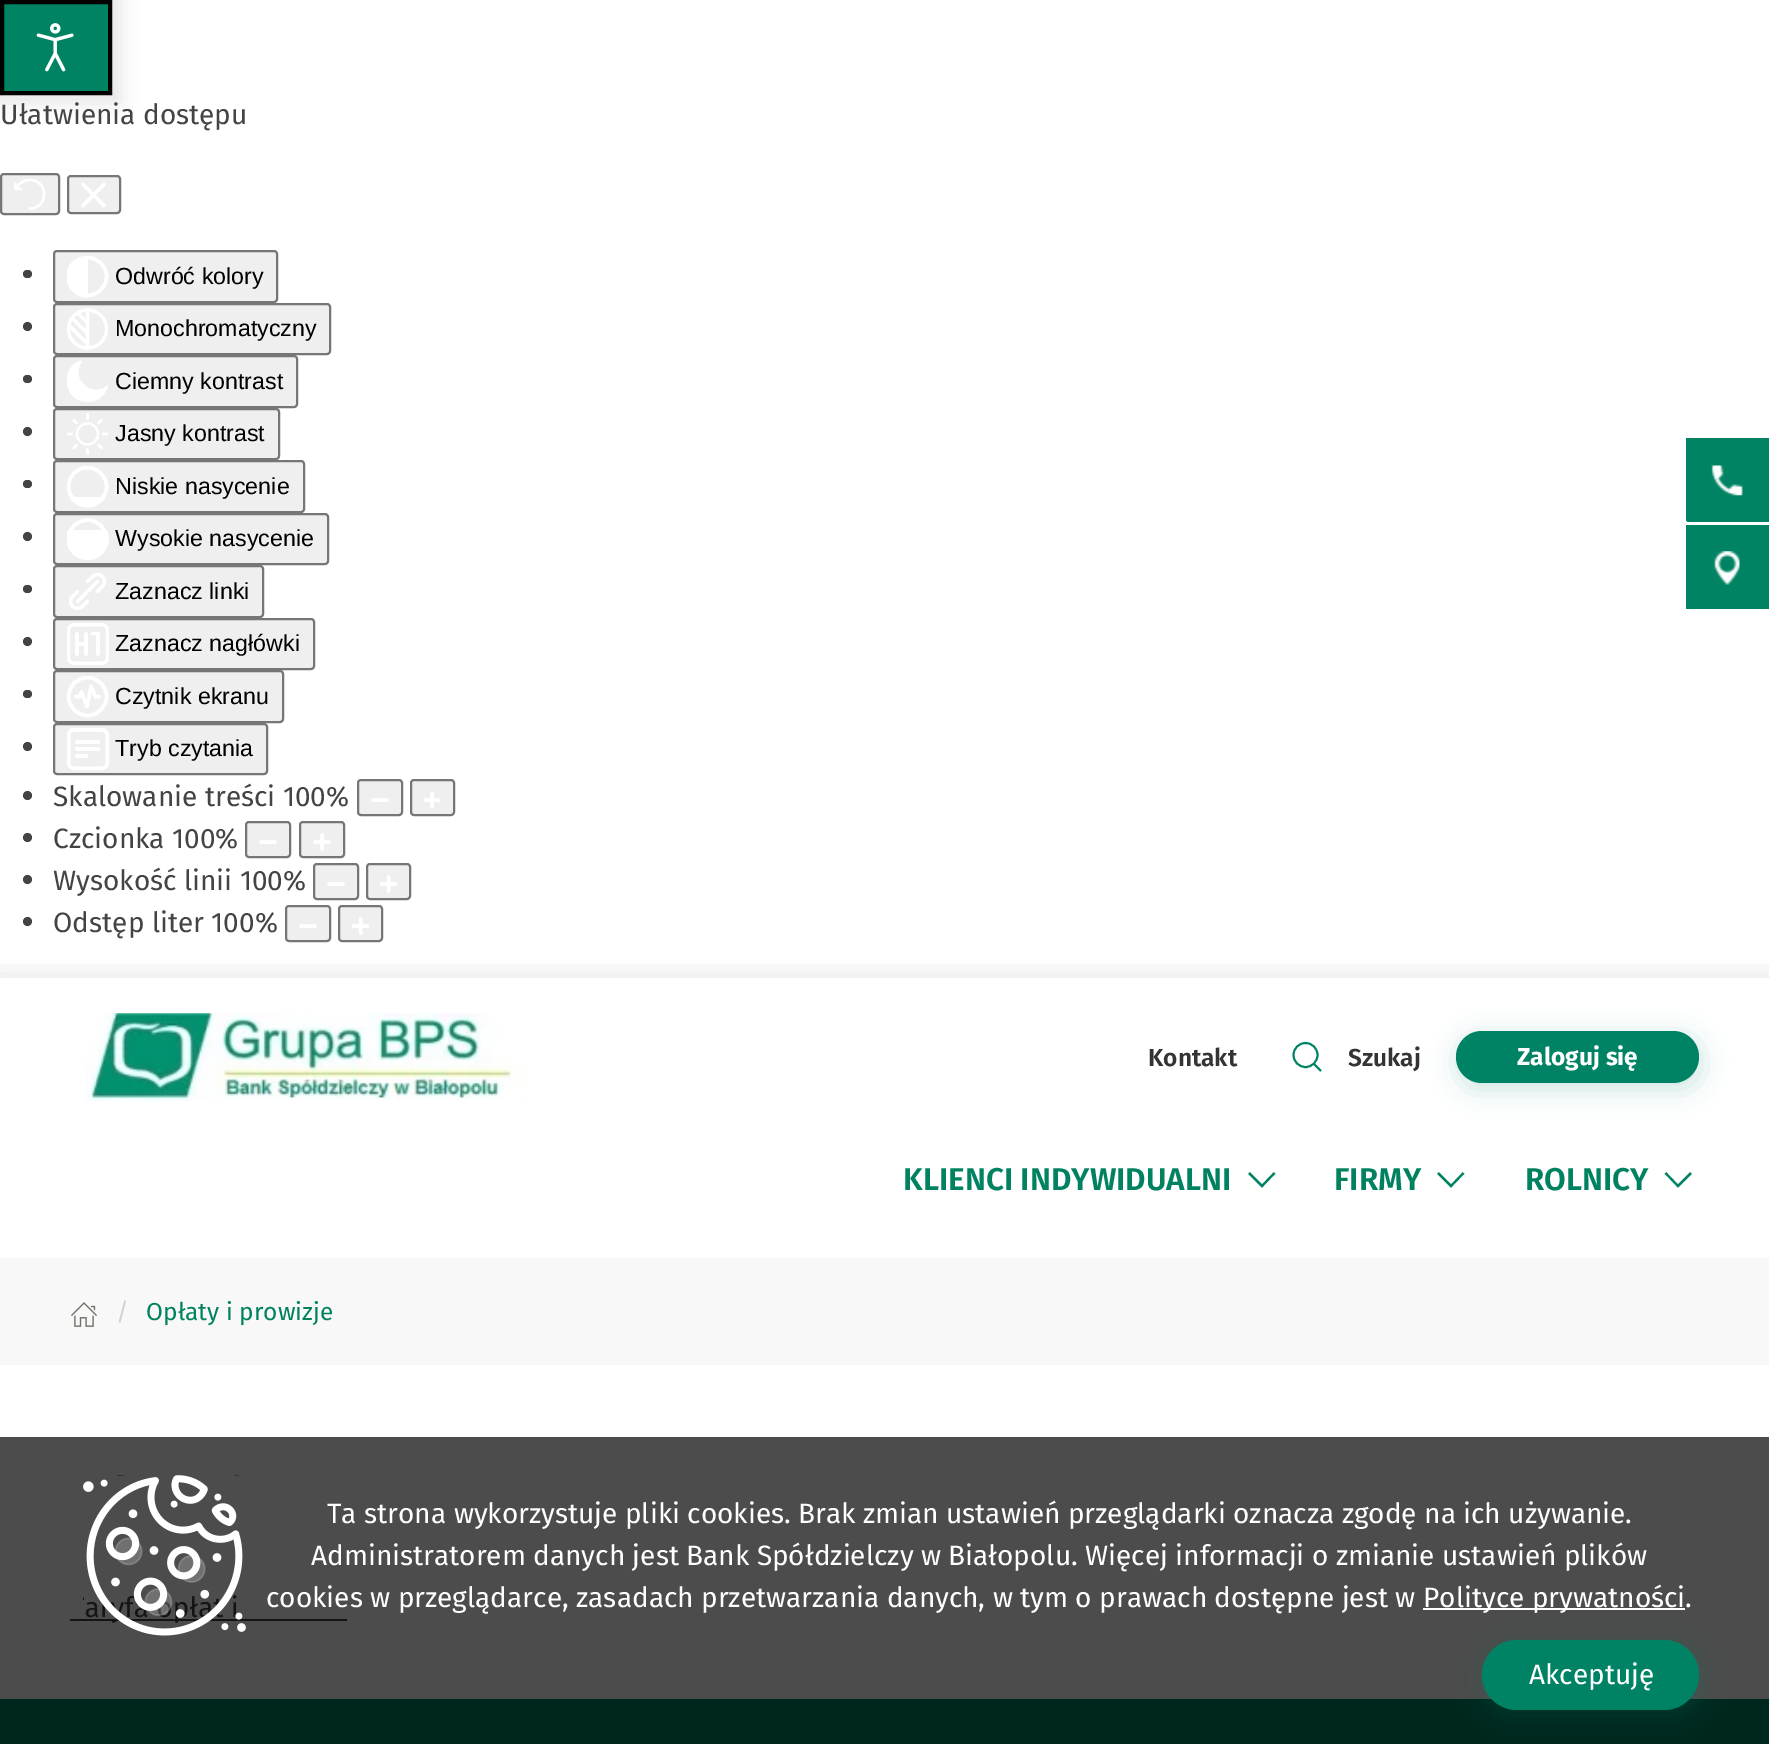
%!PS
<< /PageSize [1769 1744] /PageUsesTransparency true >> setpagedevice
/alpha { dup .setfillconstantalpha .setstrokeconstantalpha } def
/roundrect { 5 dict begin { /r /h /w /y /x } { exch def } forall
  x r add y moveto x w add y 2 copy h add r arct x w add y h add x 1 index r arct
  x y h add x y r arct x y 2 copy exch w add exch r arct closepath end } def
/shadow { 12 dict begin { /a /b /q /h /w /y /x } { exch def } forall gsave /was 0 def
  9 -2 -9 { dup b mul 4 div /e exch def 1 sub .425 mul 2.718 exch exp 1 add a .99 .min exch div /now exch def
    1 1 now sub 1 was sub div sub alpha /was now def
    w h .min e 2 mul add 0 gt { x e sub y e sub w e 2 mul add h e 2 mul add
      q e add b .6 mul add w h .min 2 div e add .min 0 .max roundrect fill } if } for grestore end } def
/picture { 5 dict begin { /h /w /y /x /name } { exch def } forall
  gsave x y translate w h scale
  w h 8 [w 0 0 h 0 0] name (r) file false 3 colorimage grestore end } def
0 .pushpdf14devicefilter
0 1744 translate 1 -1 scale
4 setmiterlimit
1 setgray
0 0 1769 1744 rectfill
0 setgray
-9 -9 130 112 0 9 0.1 shadow
0 0.514 0.388 setrgbcolor
newpath 2 2 moveto 110 2 lineto 110 93 lineto 2 93 lineto closepath gsave fill grestore
0 setgray
4 setlinewidth
stroke
(img1.rgb) 36 23 38 49 picture
/FiraSans-Regular [28 0 0 -28 0 0] selectfont
0.267 setgray
0 124 moveto (Ułatwienia dostępu) show
0.937 setgray
1 174 58 40 3 roundrect gsave fill grestore
0.463 setgray
2 setlinewidth
stroke
(img2.rgb) 14 179 32 31 picture
0.937 setgray
68 176 52 37 3 roundrect gsave fill grestore
0.463 setgray
stroke
1 setgray
3.5 setlinewidth
1 setlinecap
newpath 83 184.5 moveto 104 205.5 lineto 104 184.5 moveto 83 205.5 lineto stroke
0.267 setgray
23 270 9 8 4 roundrect fill
0.937 setgray
54 251 223 51 3 roundrect gsave fill grestore
0.463 setgray
2 setlinewidth
0 setlinecap
stroke
gsave
67 256 42 42 rectclip
1 setgray
3.5 setlinewidth
newpath 87.5 276.5 19 0 360 arc closepath stroke
newpath 66 276 moveto 66 265 76 256 88 256 curveto 88 298 lineto 76 298 66 288 66 276 curveto closepath fill
grestore
/LiberationSans-Regular [23.25 0 0 -23.25 0 0] selectfont
0 setgray
115 284 moveto (Odwróć kolory) show
0.267 setgray
newpath 27.5 326.5 4.5 0 360 arc closepath fill
0.937 setgray
54 304 276 50 3 roundrect gsave fill grestore
0.463 setgray
stroke
(img3.rgb) 67 308 41 42 picture
0 setgray
115 336 moveto (Monochromatyczny) show
0.267 setgray
23 375 9 8 4 roundrect fill
0.937 setgray
54 356 243 51 3 roundrect gsave fill grestore
0.463 setgray
stroke
gsave
67 361 42 42 rectclip
1 setgray
newpath 88 402 moveto 62 402 59 365 83 360 curveto 68 377 92 400 108 385 curveto 106 395 98 402 88 402 curveto closepath fill
grestore
0 setgray
115 389 moveto (Ciemny kontrast) show
0.267 setgray
newpath 27.5 431.5 4.5 0 360 arc closepath fill
0.937 setgray
54 409 225 50 3 roundrect gsave fill grestore
0.463 setgray
stroke
(img4.rgb) 67 413 42 42 picture
0 setgray
115 441 moveto (Jasny kontrast) show
0.267 setgray
23 480 9 8 4 roundrect fill
0.937 setgray
54 461 250 51 3 roundrect gsave fill grestore
0.463 setgray
stroke
gsave
67 466 42 42 rectclip
1 setgray
3.5 setlinewidth
newpath 87.5 486.5 19 0 360 arc closepath stroke
grestore
0 setgray
115 494 moveto (Niskie nasycenie) show
1 setgray
newpath 87.5 507.5 moveto 80 507.5 73 503.5 69.5 497 curveto 105.5 497 lineto 102 503.5 95 507.5 87.5 507.5 curveto closepath fill
0.267 setgray
newpath 27.5 536.5 4.5 0 360 arc closepath fill
0.937 setgray
54 514 274 50 3 roundrect gsave fill grestore
0.463 setgray
stroke
gsave
67 518 42 42 rectclip
1 setgray
3.5 setlinewidth
newpath 87.5 539 19 0 360 arc closepath stroke
grestore
0 setgray
115 546 moveto (Wysokie nasycenie) show
gsave
67 518 42 42 rectclip
1 setgray
newpath 88 560 moveto 72 560 62 544 68 530 curveto 107 530 lineto 113 544 103 560 88 560 curveto closepath fill
grestore
0.267 setgray
23 585 9 8 4 roundrect fill
0.937 setgray
54 566 209 51 3 roundrect gsave fill grestore
0.463 setgray
stroke
(img5.rgb) 69 573 37 37 picture
0 setgray
115 599 moveto (Zaznacz linki) show
0.267 setgray
newpath 27.5 641.5 4.5 0 360 arc closepath fill
0.937 setgray
54 619 260 50 3 roundrect gsave fill grestore
0.463 setgray
stroke
(img6.rgb) 67 623 42 42 picture
0 setgray
115 651 moveto (Zaznacz nagłówki) show
0.267 setgray
23 690 9 8 4 roundrect fill
0.937 setgray
54 671 229 51 3 roundrect gsave fill grestore
0.463 setgray
stroke
gsave
67 676 42 42 rectclip
1 setgray
3.5 setlinewidth
newpath 87.5 696.5 19 0 360 arc closepath stroke
grestore
1 setgray
3.5 setlinewidth
1 setlinecap
1 setlinejoin
newpath 76 696.5 moveto 79.5 696.5 lineto 81.5 692 lineto 87 706.5 lineto 91 686.5 lineto 95.5 696.5 lineto 99 696.5 lineto stroke
0 setgray
115 704 moveto (Czytnik ekranu) show
0.267 setgray
newpath 27.5 746.5 4.5 0 360 arc closepath fill
0.937 setgray
54 724 213 50 3 roundrect gsave fill grestore
0.463 setgray
2 setlinewidth
0 setlinecap
0 setlinejoin
stroke
1 setgray
3.5 setlinewidth
68.75 729.75 38.5 38.5 5.25 roundrect stroke
0 setgray
115 756 moveto (Tryb czytania) show
1 setgray
75 740 25 4 2 roundrect fill
75 747 25 4 2 roundrect fill
75 754 13 4 2 roundrect fill
0.267 setgray
newpath 27.5 795.5 4.5 0 360 arc closepath fill
0.937 setgray
358 780 44 35 3 roundrect gsave fill grestore
0.463 setgray
2 setlinewidth
stroke
0.937 setgray
411 780 43 35 3 roundrect gsave fill grestore
0.463 setgray
stroke
1 setgray
3.5 setlinewidth
1 setlinecap
newpath 387 800 moveto 373 800 lineto 432 793 moveto 432 807 lineto stroke
/FiraSans-Regular [28 0 0 -28 0 0] selectfont
0.267 setgray
53 806 moveto (Skalowanie treści 100%) show
gsave
424 791 17 18 rectclip
1 setgray
newpath 439 800 moveto 425 800 lineto stroke
grestore
newpath 27.5 837.5 4.5 0 360 arc closepath fill
53 848 moveto (Czcionka 100%) show
0.937 setgray
246 822 44 35 3 roundrect gsave fill grestore
0.463 setgray
2 setlinewidth
0 setlinecap
stroke
1 setgray
3.5 setlinewidth
1 setlinecap
newpath 275 842 moveto 261 842 lineto stroke
0.937 setgray
300 822 44 35 3 roundrect gsave fill grestore
0.463 setgray
2 setlinewidth
0 setlinecap
stroke
0.937 setgray
314 864 44 35 3 roundrect gsave fill grestore
0.463 setgray
stroke
1 setgray
3.5 setlinewidth
1 setlinecap
newpath 322 835 moveto 322 849 lineto 329 842 moveto 315 842 lineto 343 884 moveto 329 884 lineto stroke
0.267 setgray
newpath 27.5 879.5 4.5 0 360 arc closepath fill
53 890 moveto (Wysokość linii 100%) show
0.937 setgray
367 864 43 35 3 roundrect gsave fill grestore
0.463 setgray
2 setlinewidth
0 setlinecap
stroke
1 setgray
3.5 setlinewidth
1 setlinecap
newpath 388.5 877 moveto 388.5 891 lineto stroke
gsave
380 875 17 18 rectclip
newpath 395.5 884 moveto 381.5 884 lineto stroke
grestore
0.267 setgray
newpath 27.5 921.5 4.5 0 360 arc closepath fill
53 932 moveto (Odstęp liter 100%) show
0.937 setgray
286 906 44 35 3 roundrect gsave fill grestore
0.463 setgray
2 setlinewidth
0 setlinecap
stroke
1 setgray
3.5 setlinewidth
1 setlinecap
newpath 315 926 moveto 301 926 lineto stroke
0.937 setgray
339 906 43 35 3 roundrect gsave fill grestore
0.463 setgray
2 setlinewidth
0 setlinecap
stroke
1 setgray
3.5 setlinewidth
1 setlinecap
newpath 360.5 919 moveto 360.5 933 lineto stroke
gsave
352 917 17 18 rectclip
newpath 367.5 926 moveto 353.5 926 lineto stroke
grestore
0 0.514 0.388 setrgbcolor
1686 438 1 83 rectfill
1687 438 82 84 rectfill
(img7.rgb) 1711 465 32 31 picture
1686 525 83 84 rectfill
(img8.rgb) 1714 551 26 34 picture
0 1699 1769 45 rectfill
gsave
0 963 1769 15 rectclip
0 setgray
-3 975 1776 287 0 14 0.1 shadow
grestore
1 setgray
3 978 1764 1 rectfill
(img9.rgb) 86 1013 439 88 picture
/FiraSans-SemiBold [24.5 0 0 -24.5 0 0] selectfont
0.204 setgray
1148 1066 moveto (Kontakt) show
0 0.514 0.392 setrgbcolor
1.9 setlinewidth
0 setlinecap
newpath 1305.5 1055 12 0 360 arc closepath stroke
newpath 1314 1064 moveto 1321 1071 lineto closepath stroke
0.204 setgray
1348 1066 moveto (Szukaj) show
0 0.514 0.392 setrgbcolor
1458 1036 243 53 26.5 13 0.2 shadow
1456 1031 243 52 26 roundrect fill
/FiraSans-Bold [24.5 0 0 -24.5 0 0] selectfont
1 setgray
1517 1065 moveto (Zaloguj się) show
/FiraSans-SemiBold [31.5 0 0 -31.5 0 0] selectfont
0 0.506 0.376 setrgbcolor
903 1190 moveto (KLIENCI INDYWIDUALNI) show
0 0.514 0.388 setrgbcolor
2.2 setlinewidth
newpath 1274.5 1173 moveto 1262 1186 lineto 1249 1173 lineto stroke
0 0.506 0.376 setrgbcolor
1334 1190 moveto (FIRMY) show
0 0.514 0.388 setrgbcolor
newpath 1463.5 1173 moveto 1451 1186 lineto 1438 1173 lineto stroke
0 0.506 0.376 setrgbcolor
1525 1190 moveto (ROLNICY) show
0 0.514 0.388 setrgbcolor
newpath 1691 1173 moveto 1678 1186 lineto 1665.5 1173 lineto stroke
0.973 setgray
0 1258 1769 107 rectfill
(img10.rgb) 71 1302 26 25 picture
/FiraSans-Regular [24.5 0 0 -24.5 0 0] selectfont
0.82 setgray
116 1320 moveto (/) show
0 0.506 0.376 setrgbcolor
146 1320 moveto (Opłaty i prowizje) show
0.267 setgray
70 1619 277 2 rectfill
0.7 alpha
0 setgray
0 1437 1769 307 rectfill
1 alpha
(img11.rgb) 83 1475 163 161 picture
/FiraSans-Regular [28 0 0 -28 0 0] selectfont
1 setgray
327 1523 moveto (Ta strona wykorzystuje pliki cookies. Brak zmian ustawień przeglądarki oznacza zgodę na ich używanie.) show
311 1565 moveto (Administratorem danych jest Bank Spółdzielczy w Białopolu. Więcej informacji o zmianie ustawień plików) show
266 1607 moveto (cookies w przeglądarce, zasadach przetwarzania danych, w tym o prawach dostępne jest w) show
0 0.514 0.392 setrgbcolor
1484 1645 217 70 35 13 0.2 shadow
1 setgray
1423 1608 262 2 rectfill
1423 1607 moveto (Polityce prywatności.) show
0 0.514 0.392 setrgbcolor
1482 1640 217 70 35 roundrect fill
1 setgray
1529 1684 moveto (Akceptuję) show
.poppdf14devicefilter showpage
